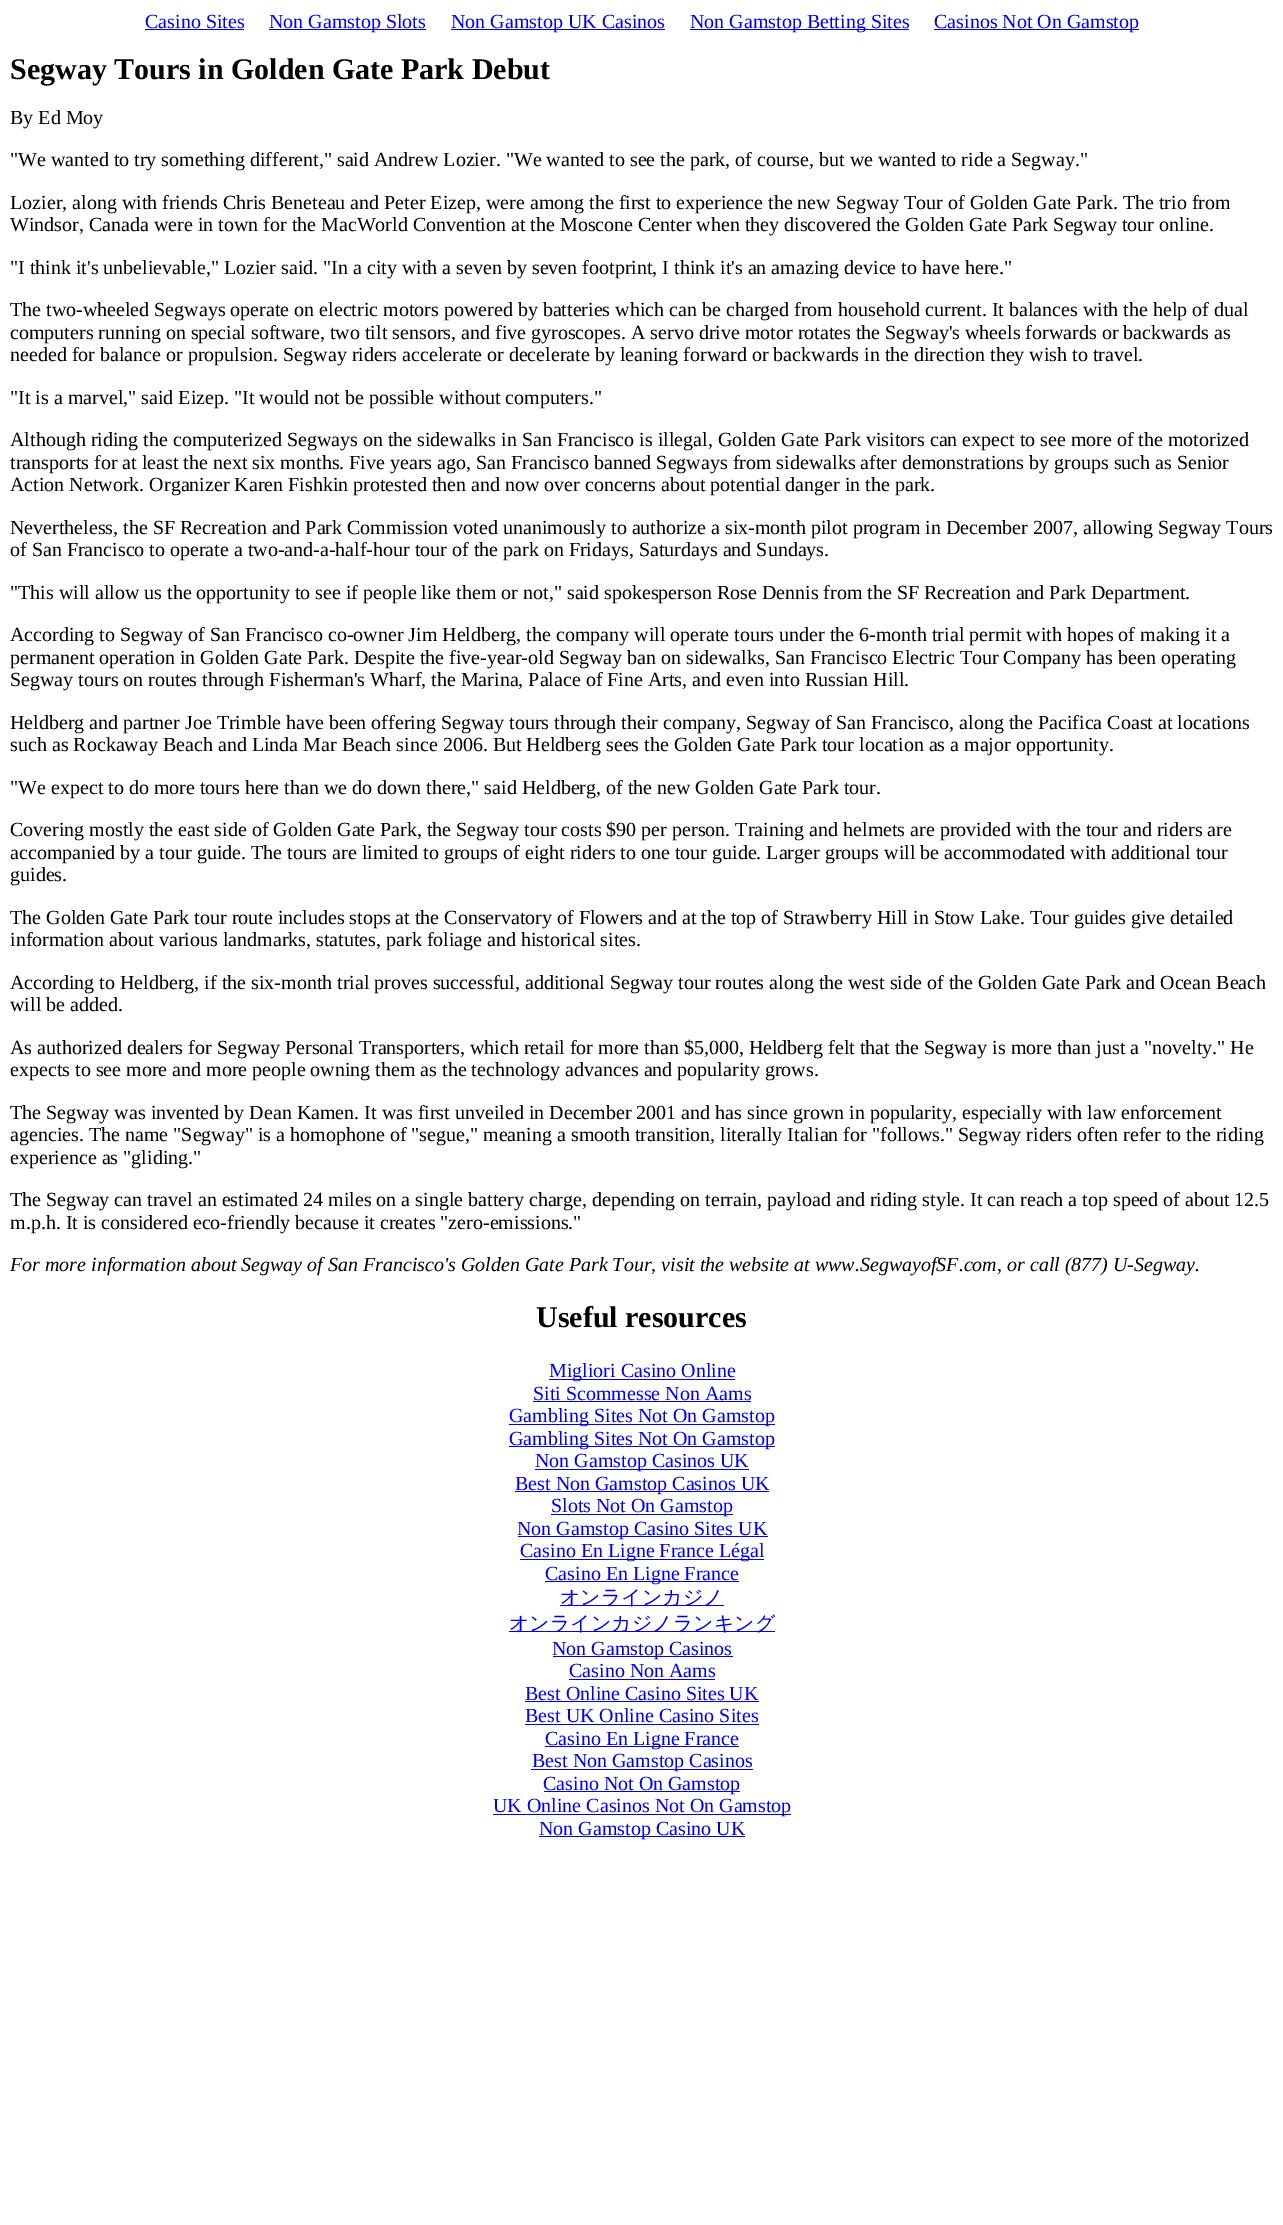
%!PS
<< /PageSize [1283 2225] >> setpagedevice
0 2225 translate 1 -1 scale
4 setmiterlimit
1 setgray
0 0 1283 2225 rectfill
/LiberationSerif-Regular [20 0 0 -20 0 0] selectfont
0 0 0.933 setrgbcolor
145 28 moveto (Casino Sites) show
145 29 99 1 rectfill
269 29 157 1 rectfill
269 28 moveto (Non Gamstop Slots) show
451 29 214 1 rectfill
451 28 moveto (Non Gamstop UK Casinos) show
690 29 219 1 rectfill
690 28 moveto (Non Gamstop Betting Sites) show
934 29 205 1 rectfill
934 28 moveto (Casinos Not On Gamstop) show
/LiberationSerif-Bold [30 0 0 -30 0 0] selectfont
0 setgray
10 79 moveto (Segway Tours in Golden Gate Park Debut) show
/LiberationSerif-Regular [20 0 0 -20 0 0] selectfont
10 124 moveto (By Ed Moy) show
10 166 moveto ("We wanted to try something different," said Andrew Lozier. "We wanted to see the park, of course, but we wanted to ride a Segway.") show
10 209 moveto (Lozier, along with friends Chris Beneteau and Peter Eizep, were among the first to experience the new Segway Tour of Golden Gate Park. The trio from) show
10 231 moveto (Windsor, Canada were in town for the MacWorld Convention at the Moscone Center when they discovered the Golden Gate Park Segway tour online.) show
10 274 moveto ("I think it's unbelievable," Lozier said. "In a city with a seven by seven footprint, I think it's an amazing device to have here.") show
10 316 moveto (The two-wheeled Segways operate on electric motors powered by batteries which can be charged from household current. It balances with the help of dual) show
10 339 moveto (computers running on special software, two tilt sensors, and five gyroscopes. A servo drive motor rotates the Segway's wheels forwards or backwards as) show
10 361 moveto (needed for balance or propulsion. Segway riders accelerate or decelerate by leaning forward or backwards in the direction they wish to travel.) show
10 404 moveto ("It is a marvel," said Eizep. "It would not be possible without computers.") show
10 446 moveto (Although riding the computerized Segways on the sidewalks in San Francisco is illegal, Golden Gate Park visitors can expect to see more of the motorized) show
10 469 moveto (transports for at least the next six months. Five years ago, San Francisco banned Segways from sidewalks after demonstrations by groups such as Senior) show
10 491 moveto (Action Network. Organizer Karen Fishkin protested then and now over concerns about potential danger in the park.) show
10 534 moveto (Nevertheless, the SF Recreation and Park Commission voted unanimously to authorize a six-month pilot program in December 2007, allowing Segway Tours) show
10 556 moveto (of San Francisco to operate a two-and-a-half-hour tour of the park on Fridays, Saturdays and Sundays.) show
10 599 moveto ("This will allow us the opportunity to see if people like them or not," said spokesperson Rose Dennis from the SF Recreation and Park Department.) show
10 641 moveto (According to Segway of San Francisco co-owner Jim Heldberg, the company will operate tours under the 6-month trial permit with hopes of making it a) show
10 664 moveto (permanent operation in Golden Gate Park. Despite the five-year-old Segway ban on sidewalks, San Francisco Electric Tour Company has been operating) show
10 686 moveto (Segway tours on routes through Fisherman's Wharf, the Marina, Palace of Fine Arts, and even into Russian Hill.) show
10 729 moveto (Heldberg and partner Joe Trimble have been offering Segway tours through their company, Segway of San Francisco, along the Pacifica Coast at locations) show
10 751 moveto (such as Rockaway Beach and Linda Mar Beach since 2006. But Heldberg sees the Golden Gate Park tour location as a major opportunity.) show
10 794 moveto ("We expect to do more tours here than we do down there," said Heldberg, of the new Golden Gate Park tour.) show
10 836 moveto (Covering mostly the east side of Golden Gate Park, the Segway tour costs $90 per person. Training and helmets are provided with the tour and riders are) show
10 859 moveto (accompanied by a tour guide. The tours are limited to groups of eight riders to one tour guide. Larger groups will be accommodated with additional tour) show
10 881 moveto (guides.) show
10 924 moveto (The Golden Gate Park tour route includes stops at the Conservatory of Flowers and at the top of Strawberry Hill in Stow Lake. Tour guides give detailed) show
10 946 moveto (information about various landmarks, statutes, park foliage and historical sites.) show
10 989 moveto (According to Heldberg, if the six-month trial proves successful, additional Segway tour routes along the west side of the Golden Gate Park and Ocean Beach) show
10 1011 moveto (will be added.) show
10 1054 moveto (As authorized dealers for Segway Personal Transporters, which retail for more than $5,000, Heldberg felt that the Segway is more than just a "novelty." He) show
10 1076 moveto (expects to see more and more people owning them as the technology advances and popularity grows.) show
10 1119 moveto (The Segway was invented by Dean Kamen. It was first unveiled in December 2001 and has since grown in popularity, especially with law enforcement) show
10 1141 moveto (agencies. The name "Segway" is a homophone of "segue," meaning a smooth transition, literally Italian for "follows." Segway riders often refer to the riding) show
10 1164 moveto (experience as "gliding.") show
10 1206 moveto (The Segway can travel an estimated 24 miles on a single battery charge, depending on terrain, payload and riding style. It can reach a top speed of about 12.5) show
10 1229 moveto (m.p.h. It is considered eco-friendly because it creates "zero-emissions.") show
/LiberationSerif-Italic [20 0 0 -20 0 0] selectfont
10 1271 moveto (For more information about Segway of San Francisco's Golden Gate Park Tour, visit the website at www.SegwayofSF.com, or call \(877\) U-Segway.) show
/LiberationSerif-Bold [30 0 0 -30 0 0] selectfont
536 1327 moveto (Useful resources) show
0 0 0.933 setrgbcolor
549 1379 186 1 rectfill
/LiberationSerif-Regular [20 0 0 -20 0 0] selectfont
549 1377 moveto (Migliori Casino Online) show
533 1400 moveto (Siti Scommesse Non Aams) show
533 1401 218 1 rectfill
509 1424 266 1 rectfill
509 1422 moveto (Gambling Sites Not On Gamstop) show
509 1446 266 1 rectfill
509 1445 moveto (Gambling Sites Not On Gamstop) show
535 1469 214 1 rectfill
535 1467 moveto (Non Gamstop Casinos UK) show
515 1491 254 1 rectfill
515 1490 moveto (Best Non Gamstop Casinos UK) show
551 1514 182 1 rectfill
551 1512 moveto (Slots Not On Gamstop) show
518 1536 250 1 rectfill
517 1535 moveto (Non Gamstop Casino Sites UK) show
520 1559 244 1 rectfill
520 1557 moveto (Casino En Ligne France Légal) show
545 1581 194 1 rectfill
545 1580 moveto (Casino En Ligne France) show
560 1605 164 1 rectfill
/WenQuanYiZenHei-Medium [20 0 0 -20 0 0] selectfont
560 1604 moveto (オンラインカジノ) show
509 1631 266 1 rectfill
509 1630 moveto (オンラインカジノランキング) show
553 1656 180 1 rectfill
/LiberationSerif-Regular [20 0 0 -20 0 0] selectfont
552 1655 moveto (Non Gamstop Casinos) show
569 1677 moveto (Casino Non Aams) show
569 1679 146 1 rectfill
525 1700 moveto (Best Online Casino Sites UK) show
525 1701 234 1 rectfill
525 1722 moveto (Best UK Online Casino Sites) show
525 1724 234 1 rectfill
545 1746 194 1 rectfill
545 1745 moveto (Casino En Ligne France) show
531 1769 222 1 rectfill
532 1767 moveto (Best Non Gamstop Casinos) show
544 1791 196 1 rectfill
543 1790 moveto (Casino Not On Gamstop) show
493 1814 298 1 rectfill
493 1812 moveto (UK Online Casinos Not On Gamstop) show
539 1836 206 1 rectfill
539 1835 moveto (Non Gamstop Casino UK) show
showpage
